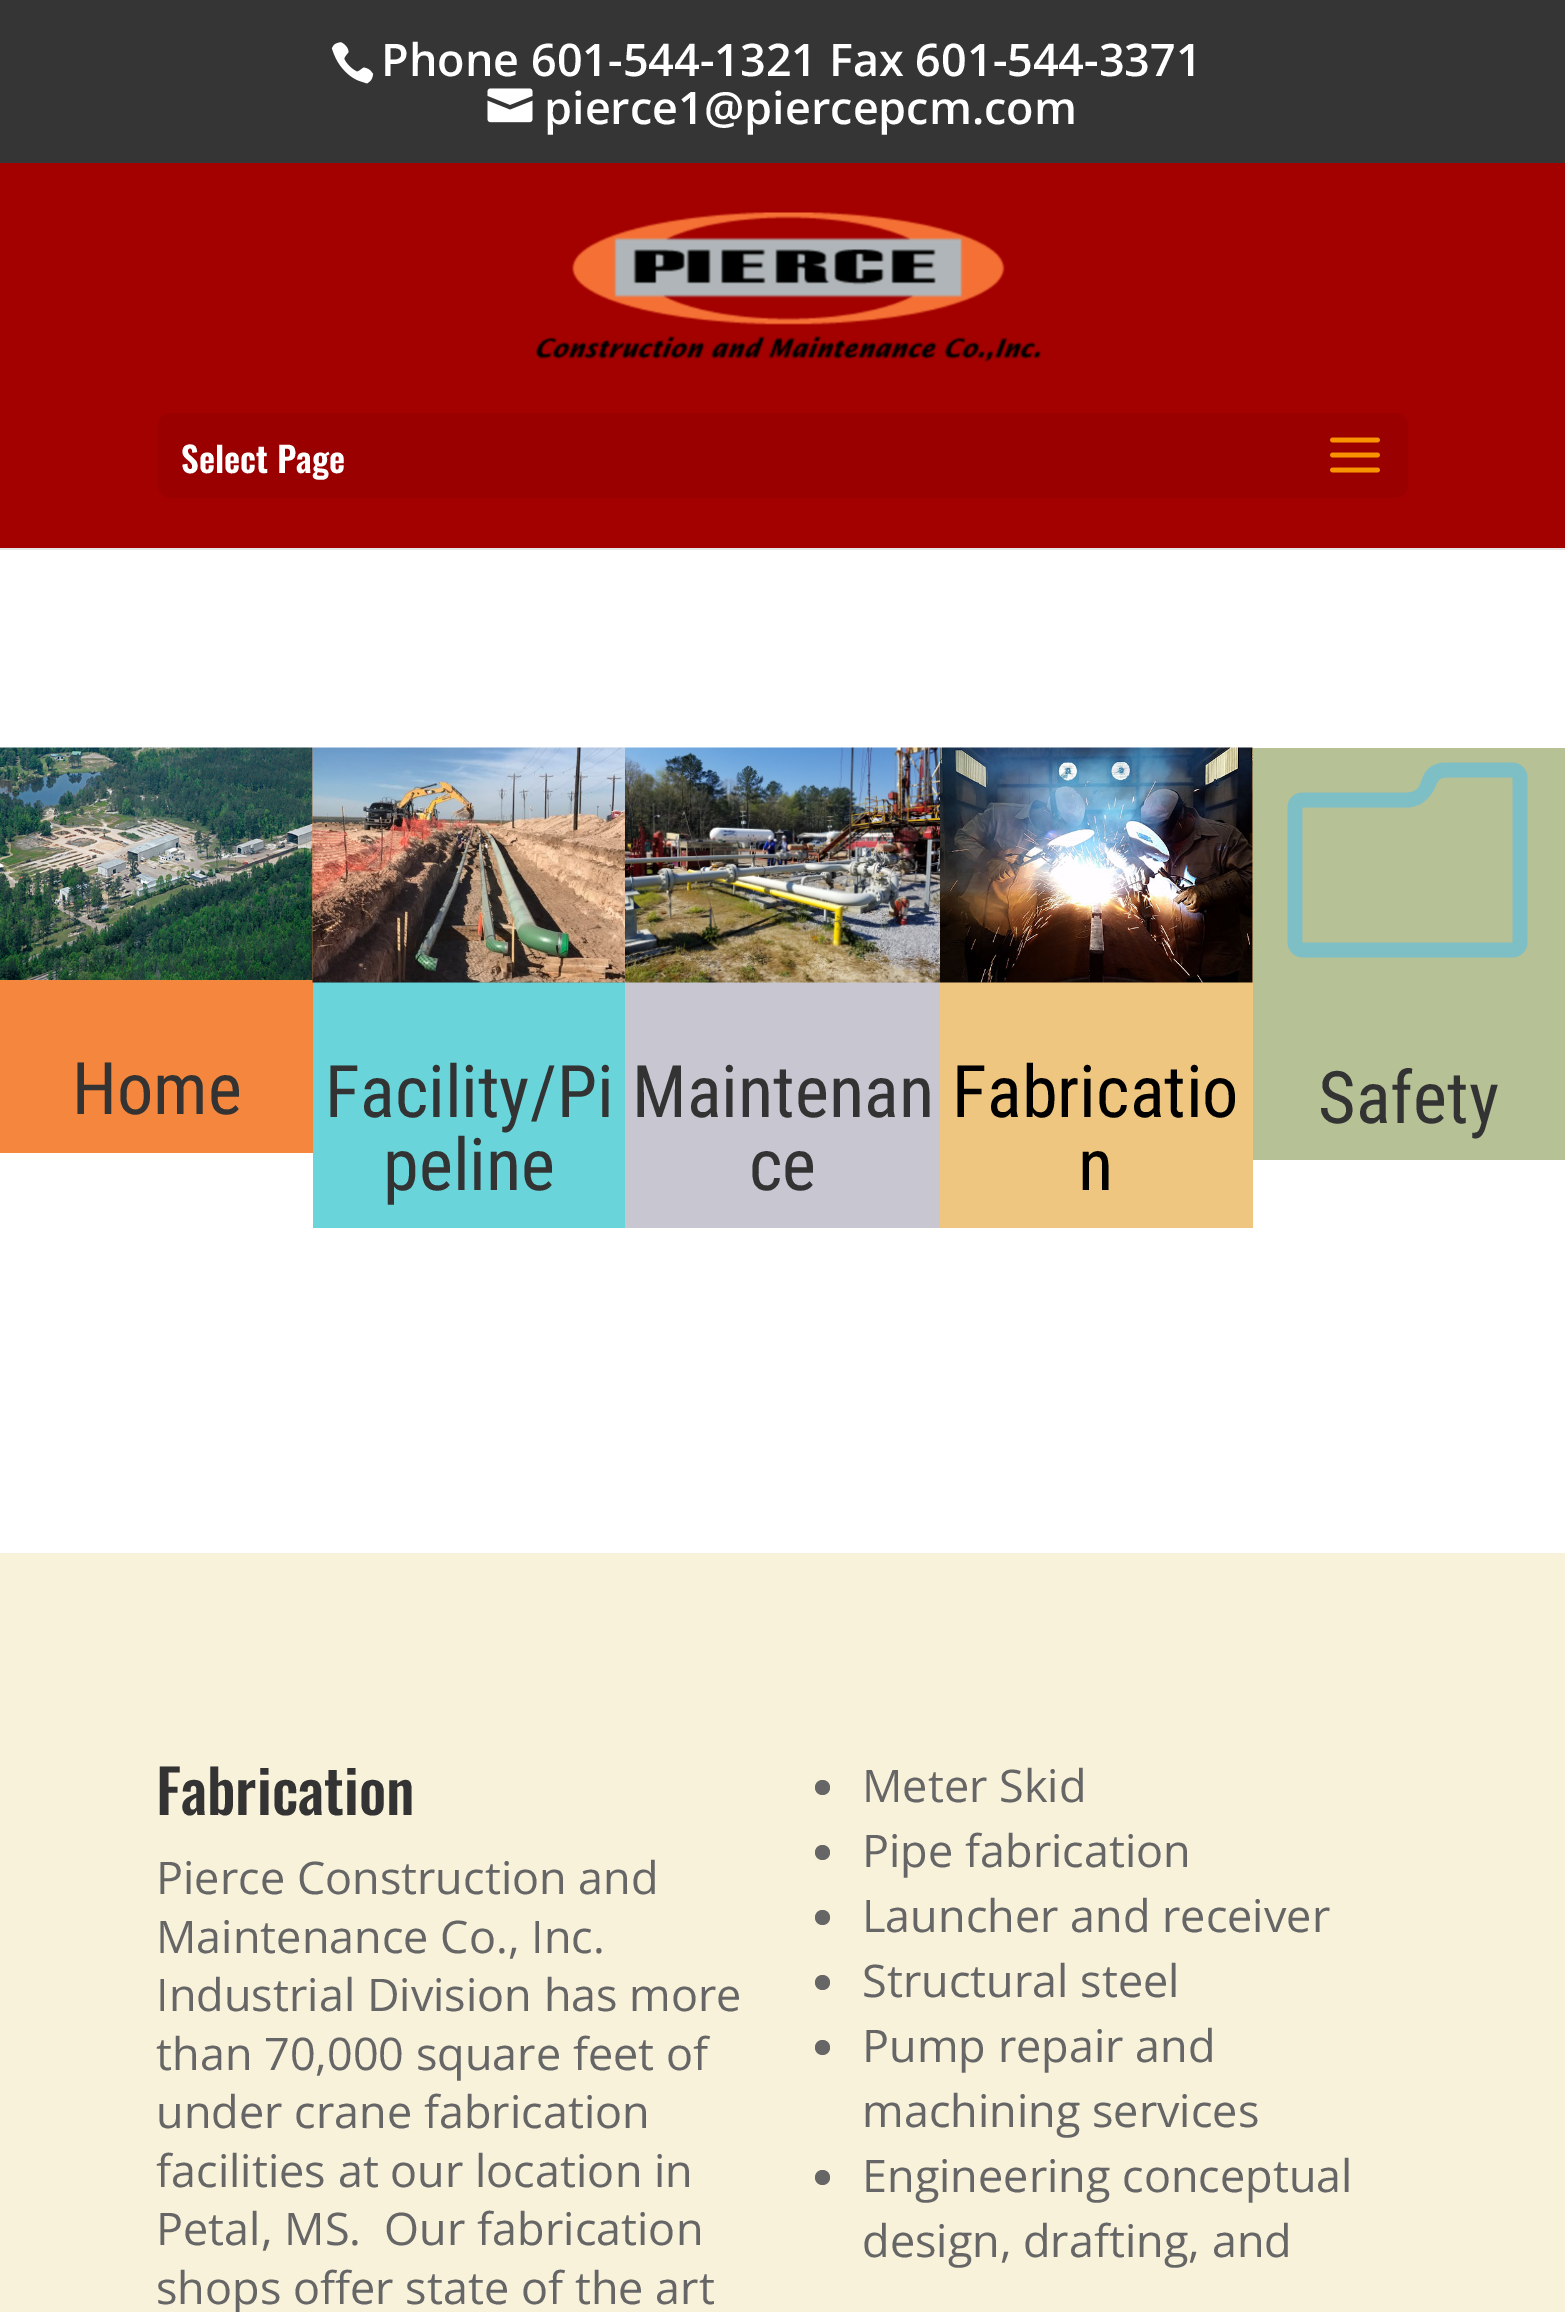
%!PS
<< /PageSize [1565 2312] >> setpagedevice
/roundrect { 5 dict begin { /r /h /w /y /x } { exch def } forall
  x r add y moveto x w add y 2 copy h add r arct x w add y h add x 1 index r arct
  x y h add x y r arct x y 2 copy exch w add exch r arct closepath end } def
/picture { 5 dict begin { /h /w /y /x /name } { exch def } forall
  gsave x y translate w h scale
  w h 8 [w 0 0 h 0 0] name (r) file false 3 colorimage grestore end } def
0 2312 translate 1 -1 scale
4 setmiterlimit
1 setgray
0 0 1565 2312 rectfill
0.208 setgray
0 0 1565 163 rectfill
(img1.rgb) 331 42 43 42 picture
/OpenSans-SemiBold [45 0 0 -45 0 0] selectfont
1 setgray
381 76 moveto (Phone 601-544-1321 Fax 601-544-3371) show
(img2.rgb) 487 88 46 35 picture
544 124 moveto (pierce1@piercepcm.com) show
0.902 setgray
0 548 1565 2 rectfill
0.639 0 0 setrgbcolor
0 163 1565 385 rectfill
(img3.rgb) 536 212 506 150 picture
0.608 0 0 setrgbcolor
158 413 1250 85 13 roundrect fill
/Oswald-SemiBold [35 0 0 -35 0 0] selectfont
1 setgray
181 473 moveto (Select Page) show
(img4.rgb) 1330 437 50 36 picture
0.957 0.525 0.239 setrgbcolor
0 748 313 405 rectfill
(img5.rgb) 0 747 313 233 picture
/RobotoCondensed-Regular [72.5 0 0 -72.5 0 0] selectfont
0.2 setgray
72 1114 moveto (Home) show
0.412 0.835 0.859 setrgbcolor
313 982 312 246 rectfill
(img6.rgb) 312 747 313 236 picture
0.2 setgray
325 1117 moveto (Facility/Pi) show
383 1190 moveto (peline) show
0.78 0.776 0.82 setrgbcolor
625 982 315 246 rectfill
(img7.rgb) 625 747 315 236 picture
0.2 setgray
632 1117 moveto (Maintenan) show
749 1190 moveto (ce) show
0.937 0.776 0.498 setrgbcolor
940 748 313 480 rectfill
(img8.rgb) 940 747 313 236 picture
0 setgray
952 1117 moveto (Fabricatio) show
1078 1190 moveto (n) show
0.714 0.757 0.584 setrgbcolor
1253 748 312 412 rectfill
(img9.rgb) 1287 762 241 196 picture
0.2 setgray
1318 1123 moveto (Safety) show
0.976 0.949 0.859 setrgbcolor
0 1553 1565 759 rectfill
/Oswald-Medium [60 0 0 -60 0 0] selectfont
0.2 setgray
156 1815 moveto (Fabrication) show
/OpenSans-Regular [45 0 0 -45 0 0] selectfont
0.4 setgray
156 1894 moveto (Pierce Construction and) show
156 1953 moveto (Maintenance Co., Inc.) show
156 2011 moveto (Industrial Division has more) show
156 2070 moveto (than 70,000 square feet of) show
156 2128 moveto (under crane fabrication) show
156 2187 moveto (facilities at our location in) show
156 2245 moveto (Petal, MS.  Our fabrication) show
156 2304 moveto (shops offer state of the art) show
newpath 822.5 1787.5 7.5 0 360 arc closepath fill
862 1802 moveto (Meter Skid) show
newpath 822.5 1852.5 7.5 0 360 arc closepath fill
862 1867 moveto (Pipe fabrication) show
newpath 822.5 1917.5 7.5 0 360 arc closepath fill
862 1932 moveto (Launcher and receiver) show
newpath 822.5 1982.5 7.5 0 360 arc closepath fill
862 1997 moveto (Structural steel) show
newpath 822.5 2047.5 7.5 0 360 arc closepath fill
862 2062 moveto (Pump repair and) show
862 2127 moveto (machining services) show
newpath 822.5 2177.5 7.5 0 360 arc closepath fill
862 2192 moveto (Engineering conceptual) show
862 2257 moveto (design, drafting, and) show
showpage
